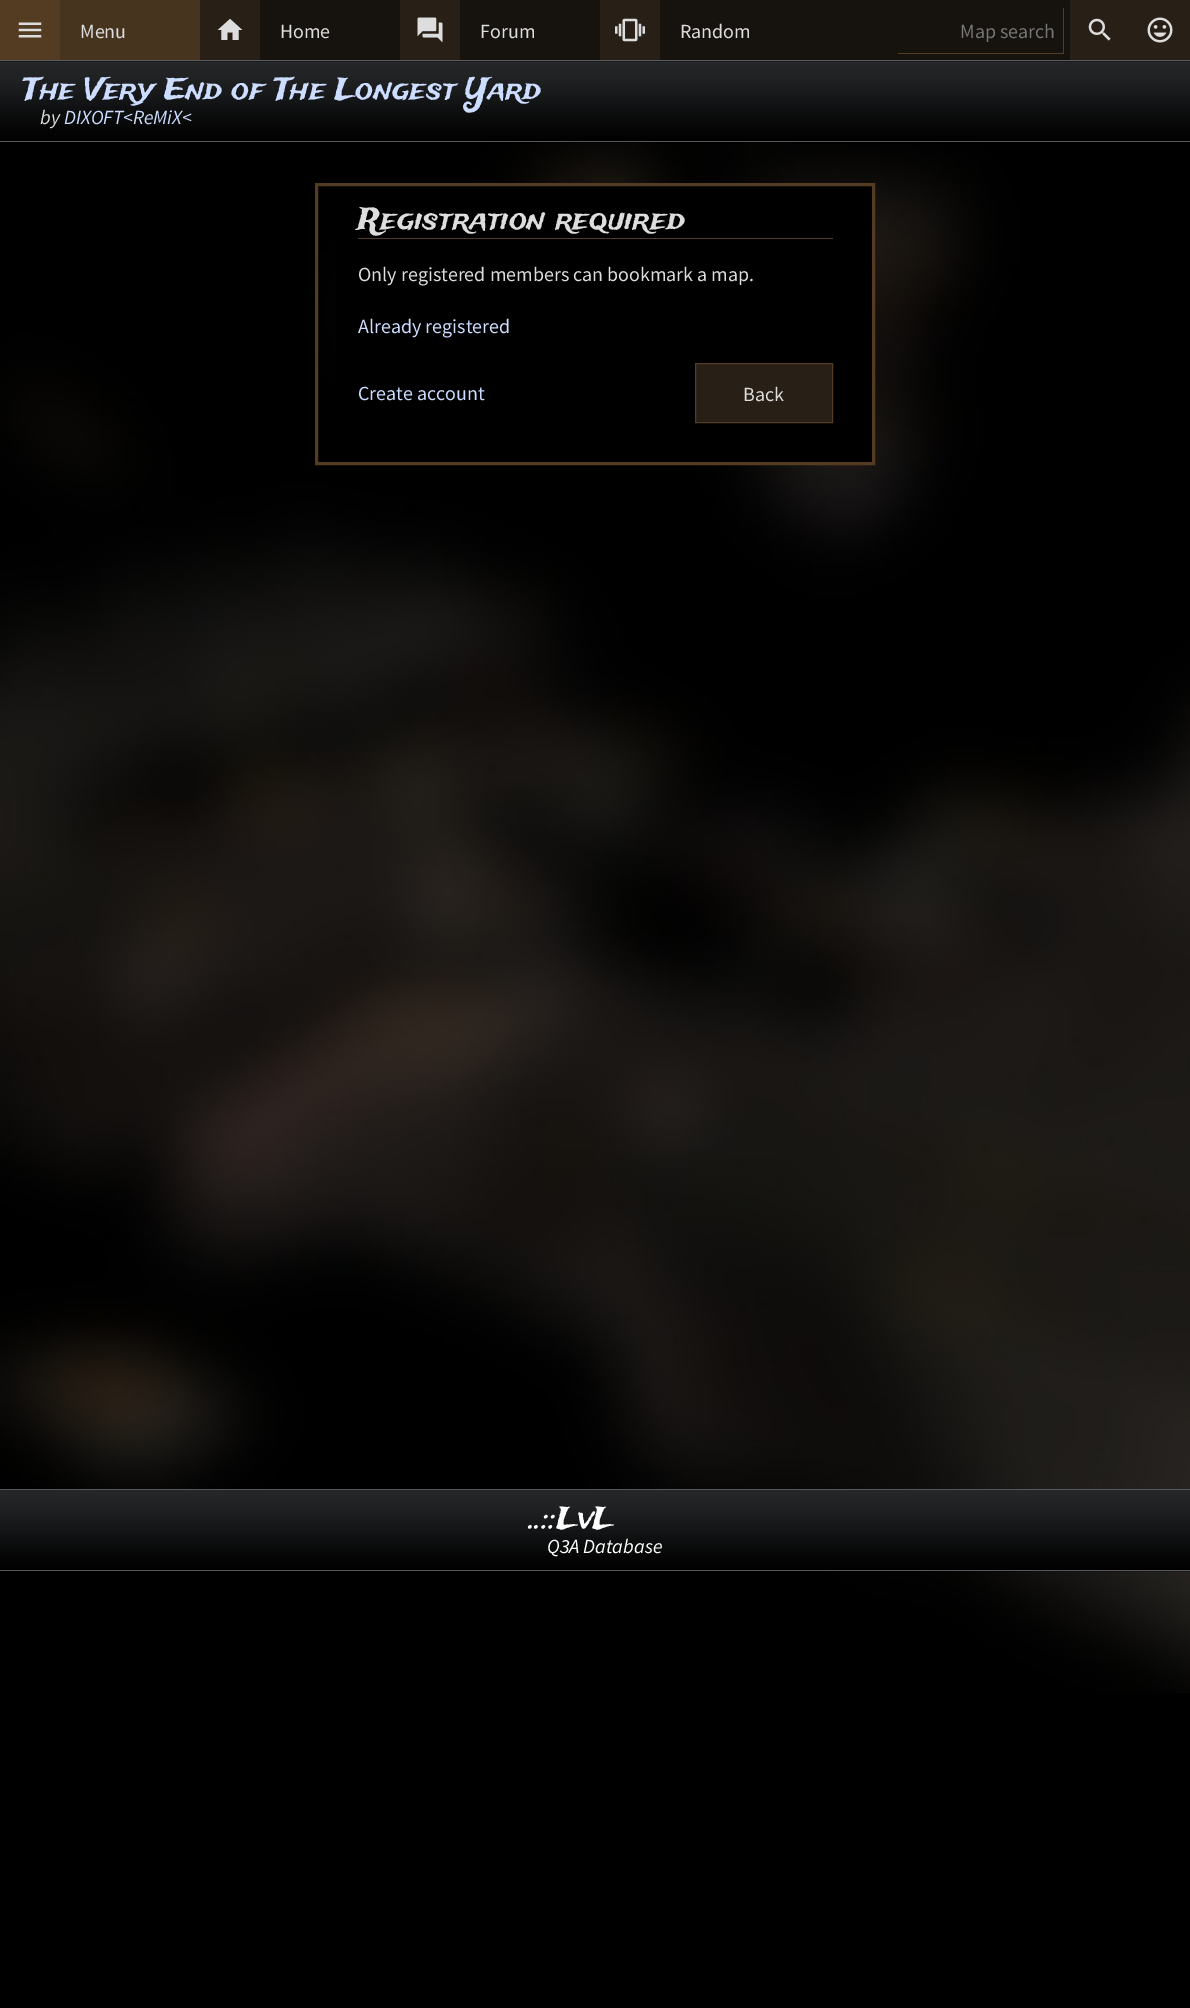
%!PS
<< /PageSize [1190 2008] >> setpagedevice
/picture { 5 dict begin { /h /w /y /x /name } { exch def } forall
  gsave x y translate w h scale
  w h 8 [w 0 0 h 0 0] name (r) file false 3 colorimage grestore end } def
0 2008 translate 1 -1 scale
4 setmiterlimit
0 setgray
0 0 1190 2008 rectfill
0.086 0.075 0.059 setrgbcolor
260 0 810 60 rectfill
0.329 0.235 0.133 setrgbcolor
0 0 60 60 rectfill
(img1.rgb) 18 22 24 16 picture
0.278 0.204 0.122 setrgbcolor
60 0 140 60 rectfill
/SourceSansPro-Regular [20 0 0 -20 0 0] selectfont
0.867 setgray
80 38 moveto (Menu) show
0.157 0.125 0.086 setrgbcolor
200 0 60 60 rectfill
(img2.rgb) 217 18 26 22 picture
0.867 setgray
280 38 moveto (Home) show
0.157 0.125 0.086 setrgbcolor
400 0 60 60 rectfill
(img3.rgb) 417 17 26 26 picture
0.867 setgray
480 38 moveto (Forum) show
0.157 0.125 0.086 setrgbcolor
600 0 60 60 rectfill
(img4.rgb) 615 18 30 24 picture
0.867 setgray
680 38 moveto (Random) show
0.329 0.235 0.133 setrgbcolor
1063 8 1 46 rectfill
898 53 166 1 rectfill
0.459 setgray
960 38 moveto (Map search) show
0.157 0.125 0.086 setrgbcolor
1070 0 120 60 rectfill
(img5.rgb) 1088 18 23 23 picture
(img6.rgb) 1147 17 26 26 picture
(img7.rgb) 0 61 1190 1632 picture
(img8.rgb) 0 61 1190 82 picture
0.337 0.345 0.365 setrgbcolor
0 60 1190 1 rectfill
0 141 1190 1 rectfill
/TradeWinds-Regular [30 0 0 -30 0 0] selectfont
0.8 0.867 1 setrgbcolor
23 99 moveto (The Very End of The Longest Yard) show
/SourceSansPro-Italic [20 0 0 -20 0 0] selectfont
0.867 setgray
40 124 moveto (by) show
0.8 0.867 1 setrgbcolor
64 124 moveto (DIXOFT<ReMiX<) show
0 setgray
336 186 536 276 rectfill
0.329 0.235 0.133 setrgbcolor
3 setlinewidth
316.5 184.5 557 279 rectstroke
358 238 475 1 rectfill
/TradeWinds-Regular [30 0 0 -30 0 0] selectfont
0.867 setgray
358 229 moveto (Registration required) show
/SourceSansPro-Regular [20 0 0 -20 0 0] selectfont
358 281 moveto (Only registered members can bookmark a map.) show
0.8 0.867 1 setrgbcolor
358 333 moveto (Already registered) show
358 400 moveto (Create account) show
0.157 0.125 0.086 setrgbcolor
newpath 695.5 363.5 moveto 832.5 363.5 lineto 832.5 422.5 lineto 695.5 422.5 lineto closepath gsave fill grestore
0.329 0.235 0.133 setrgbcolor
1 setlinewidth
stroke
0.867 setgray
743 401 moveto (Back) show
(img9.rgb) 0 1490 1190 82 picture
0.337 0.345 0.365 setrgbcolor
0 1489 1190 1 rectfill
0 1570 1190 1 rectfill
/TradeWinds-Regular [30 0 0 -30 0 0] selectfont
1 setgray
530 1528 moveto (..::LvL) show
/SourceSansPro-Italic [20 0 0 -20 0 0] selectfont
547 1553 moveto (Q3A Database) show
showpage
